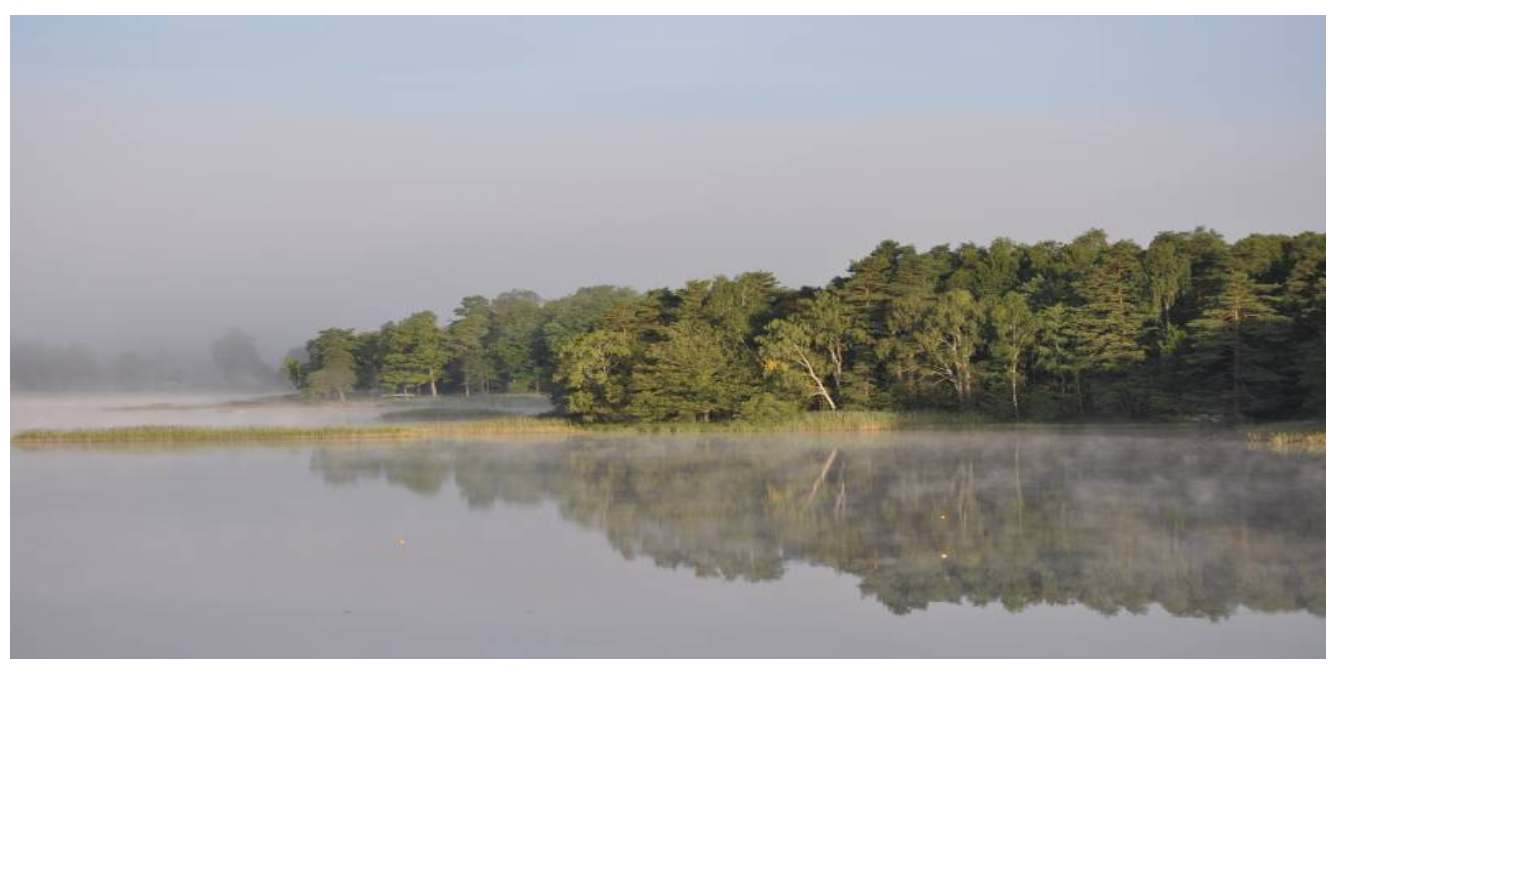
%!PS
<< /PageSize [1532 885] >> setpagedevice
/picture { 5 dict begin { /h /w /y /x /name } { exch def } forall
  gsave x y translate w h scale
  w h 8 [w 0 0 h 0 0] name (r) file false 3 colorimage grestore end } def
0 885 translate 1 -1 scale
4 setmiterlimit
1 setgray
0 0 1532 885 rectfill
(img1.rgb) 10 15 1316 644 picture
showpage
